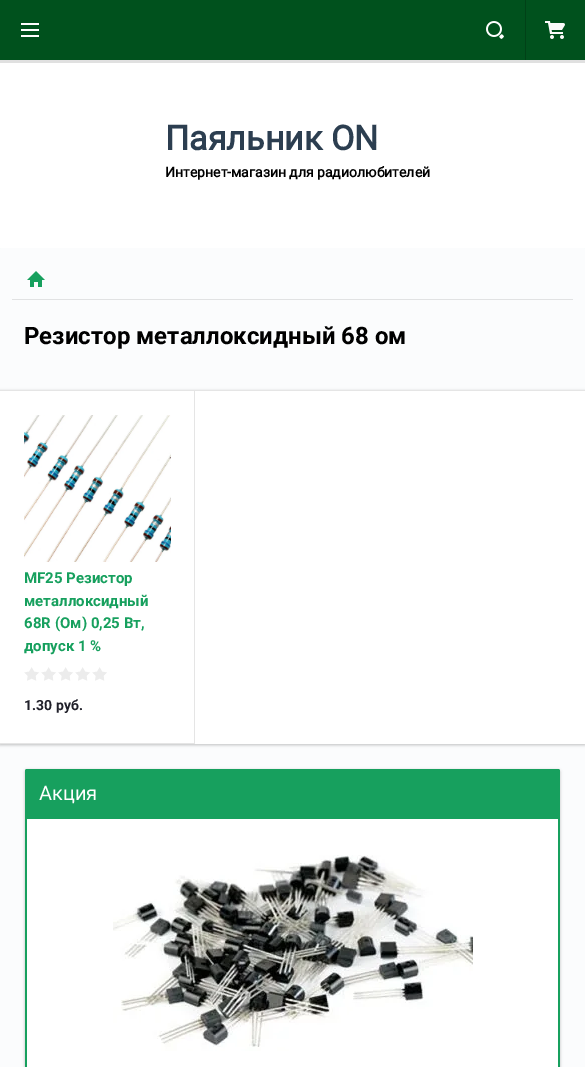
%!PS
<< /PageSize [585 1067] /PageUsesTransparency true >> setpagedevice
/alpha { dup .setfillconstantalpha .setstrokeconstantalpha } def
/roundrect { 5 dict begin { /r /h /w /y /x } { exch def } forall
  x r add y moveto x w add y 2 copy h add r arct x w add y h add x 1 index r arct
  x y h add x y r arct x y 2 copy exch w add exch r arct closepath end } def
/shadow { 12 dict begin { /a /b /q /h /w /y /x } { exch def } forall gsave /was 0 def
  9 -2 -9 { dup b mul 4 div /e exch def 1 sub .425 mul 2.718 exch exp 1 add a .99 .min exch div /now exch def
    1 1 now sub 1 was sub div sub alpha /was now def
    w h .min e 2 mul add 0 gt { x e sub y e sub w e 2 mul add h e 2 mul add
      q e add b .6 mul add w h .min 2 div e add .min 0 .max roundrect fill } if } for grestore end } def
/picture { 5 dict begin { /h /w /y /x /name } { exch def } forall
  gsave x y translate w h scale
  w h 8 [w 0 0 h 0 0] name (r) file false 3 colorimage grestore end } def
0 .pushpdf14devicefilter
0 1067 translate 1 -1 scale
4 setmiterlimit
0.957 0.996 0.973 setrgbcolor
0 0 585 1067 rectfill
1 setgray
0 63 585 185 rectfill
0.878 setgray
0 60 585 3 rectfill
0 0.318 0.114 setrgbcolor
0 0 585 60 rectfill
(img1.rgb) 21 23 18 14 picture
(img2.rgb) 486 21 18 18 picture
0 0.255 0.09 setrgbcolor
525 0 1 60 rectfill
(img3.rgb) 545 21 20 18 picture
/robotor-Bold [34 0 0 -34 0 0] selectfont
0.173 0.243 0.314 setrgbcolor
165 150 moveto (Паяльник ON) show
/robotor-Bold [14 0 0 -14 0 0] selectfont
0 setgray
165 177 moveto (Интернет-магазин для радиолюбителей) show
0.984 0.988 0.992 setrgbcolor
0 248 585 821 2 roundrect fill
0.882 0.886 0.89 setrgbcolor
12 299 561 1 rectfill
(img4.rgb) 27 271 18 16 picture
/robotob-Bold [24 0 0 -24 0 0] selectfont
0 setgray
24 344 moveto (Резистор металлоксидный 68 ом) show
0 391 585 354 0 1.5 0.24 shadow
1 setgray
0 391 585 353 rectfill
0.898 setgray
0 390 585 1 rectfill
0 743 195 1 rectfill
194 391 1 353 rectfill
(img5.rgb) 24 415 147 147 picture
/robotob-Bold [15 0 0 -15 0 0] selectfont
0.09 0.627 0.369 setrgbcolor
24 583 moveto (MF25 Резистор) show
24 606 moveto (металлоксидный) show
24 628 moveto (68R \(Ом\) 0,25 Вт,) show
24 651 moveto (допуск 1 %) show
(img6.rgb) 24 667 83 14 picture
/robotob-Bold [14 0 0 -14 0 0] selectfont
0.125 0.125 0.165 setrgbcolor
24 710 moveto (1.30 руб.) show
0 setgray
25 770 535 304 2 1.5 0.24 shadow
0.09 0.627 0.369 setrgbcolor
25 769 535 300 2 roundrect fill
/robotor-Regular [20 0 0 -20 0 0] selectfont
1 setgray
39 800 moveto (Акция) show
27 819 531 248 rectfill
(img7.rgb) 113 855 360 196 picture
.poppdf14devicefilter showpage
